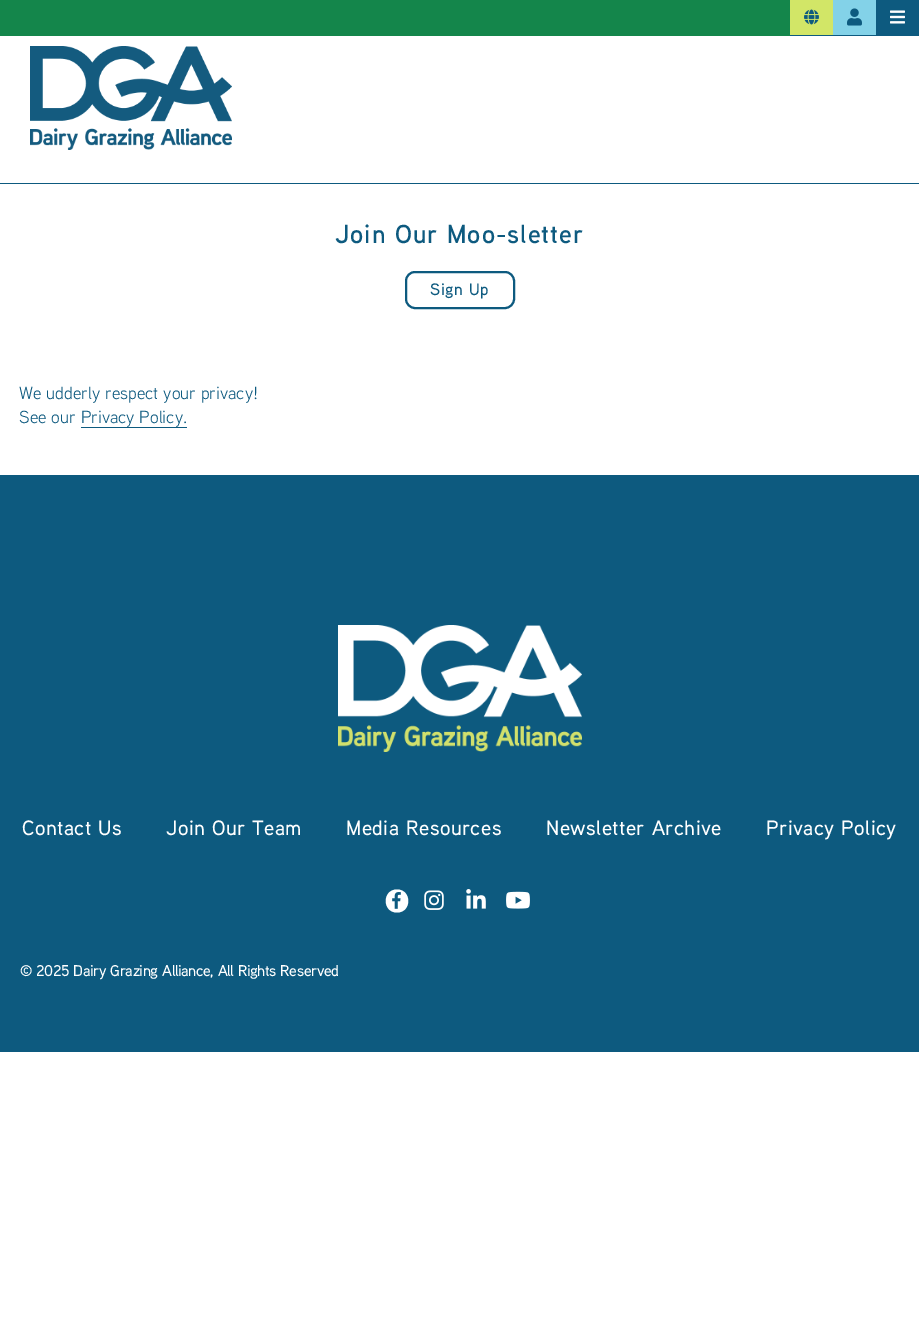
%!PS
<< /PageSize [919 1342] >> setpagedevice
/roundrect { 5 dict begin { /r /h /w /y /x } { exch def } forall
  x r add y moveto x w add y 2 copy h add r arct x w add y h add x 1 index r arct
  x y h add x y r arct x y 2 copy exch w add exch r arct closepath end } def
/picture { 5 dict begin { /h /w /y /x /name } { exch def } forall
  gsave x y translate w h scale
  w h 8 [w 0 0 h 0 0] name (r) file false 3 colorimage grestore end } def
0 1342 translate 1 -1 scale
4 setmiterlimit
1 setgray
0 0 919 1342 rectfill
0.078 0.525 0.294 setrgbcolor
0 0 790 36 rectfill
0.824 0.902 0.404 setrgbcolor
790 0 43 35 rectfill
0.051 0.353 0.498 setrgbcolor
790 35 86 1 rectfill
(img1.rgb) 804 9 15 16 picture
0.514 0.824 0.91 setrgbcolor
833 0 43 35 rectfill
(img2.rgb) 847 8 15 18 picture
0.051 0.353 0.498 setrgbcolor
876 0 43 36 rectfill
(img3.rgb) 890 10 15 14 picture
(img4.rgb) 30 46 202 104 picture
0 183 919 1 rectfill
/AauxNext-SemiBold [26 0 0 -26 0 0] selectfont
335 243 moveto 1 0 (Join Our Moo-sletter) ashow
2 setlinewidth
406 272 108 36 9 roundrect stroke
/AauxNext-Bold [16 0 0 -16 0 0] selectfont
430 295 moveto 1 0 (Sign Up) ashow
/AauxNext-Regular [17.5 0 0 -17.5 0 0] selectfont
19 399 moveto (We udderly respect your privacy!) show
19 423 moveto (See our Privacy Policy.) show
81 427 106 1 rectfill
0 475 919 577 rectfill
(img5.rgb) 338 625 244 127 picture
/AauxNext-Bold [20 0 0 -20 0 0] selectfont
1 setgray
22 835 moveto 1 0 (Contact Us) ashow
166 835 moveto 1 0 (Join Our Team) ashow
346 835 moveto 1 0 (Media Resources) ashow
546 835 moveto 1 0 (Newsletter Archive) ashow
766 835 moveto 1 0 (Privacy Policy) ashow
newpath 397 889.5 moveto 382 889.5 382 912.5 397 912.5 curveto 412 912.5 412 889.5 397 889.5 curveto closepath fill
(img6.rgb) 392 892 9 17 picture
(img7.rgb) 424 890 20 20 picture
(img8.rgb) 466 889 20 20 picture
(img9.rgb) 506 891 24 18 picture
/AauxNext-Bold [15 0 0 -15 0 0] selectfont
20 976 moveto (© 2025 Dairy Grazing Alliance, All Rights Reserved) show
showpage
